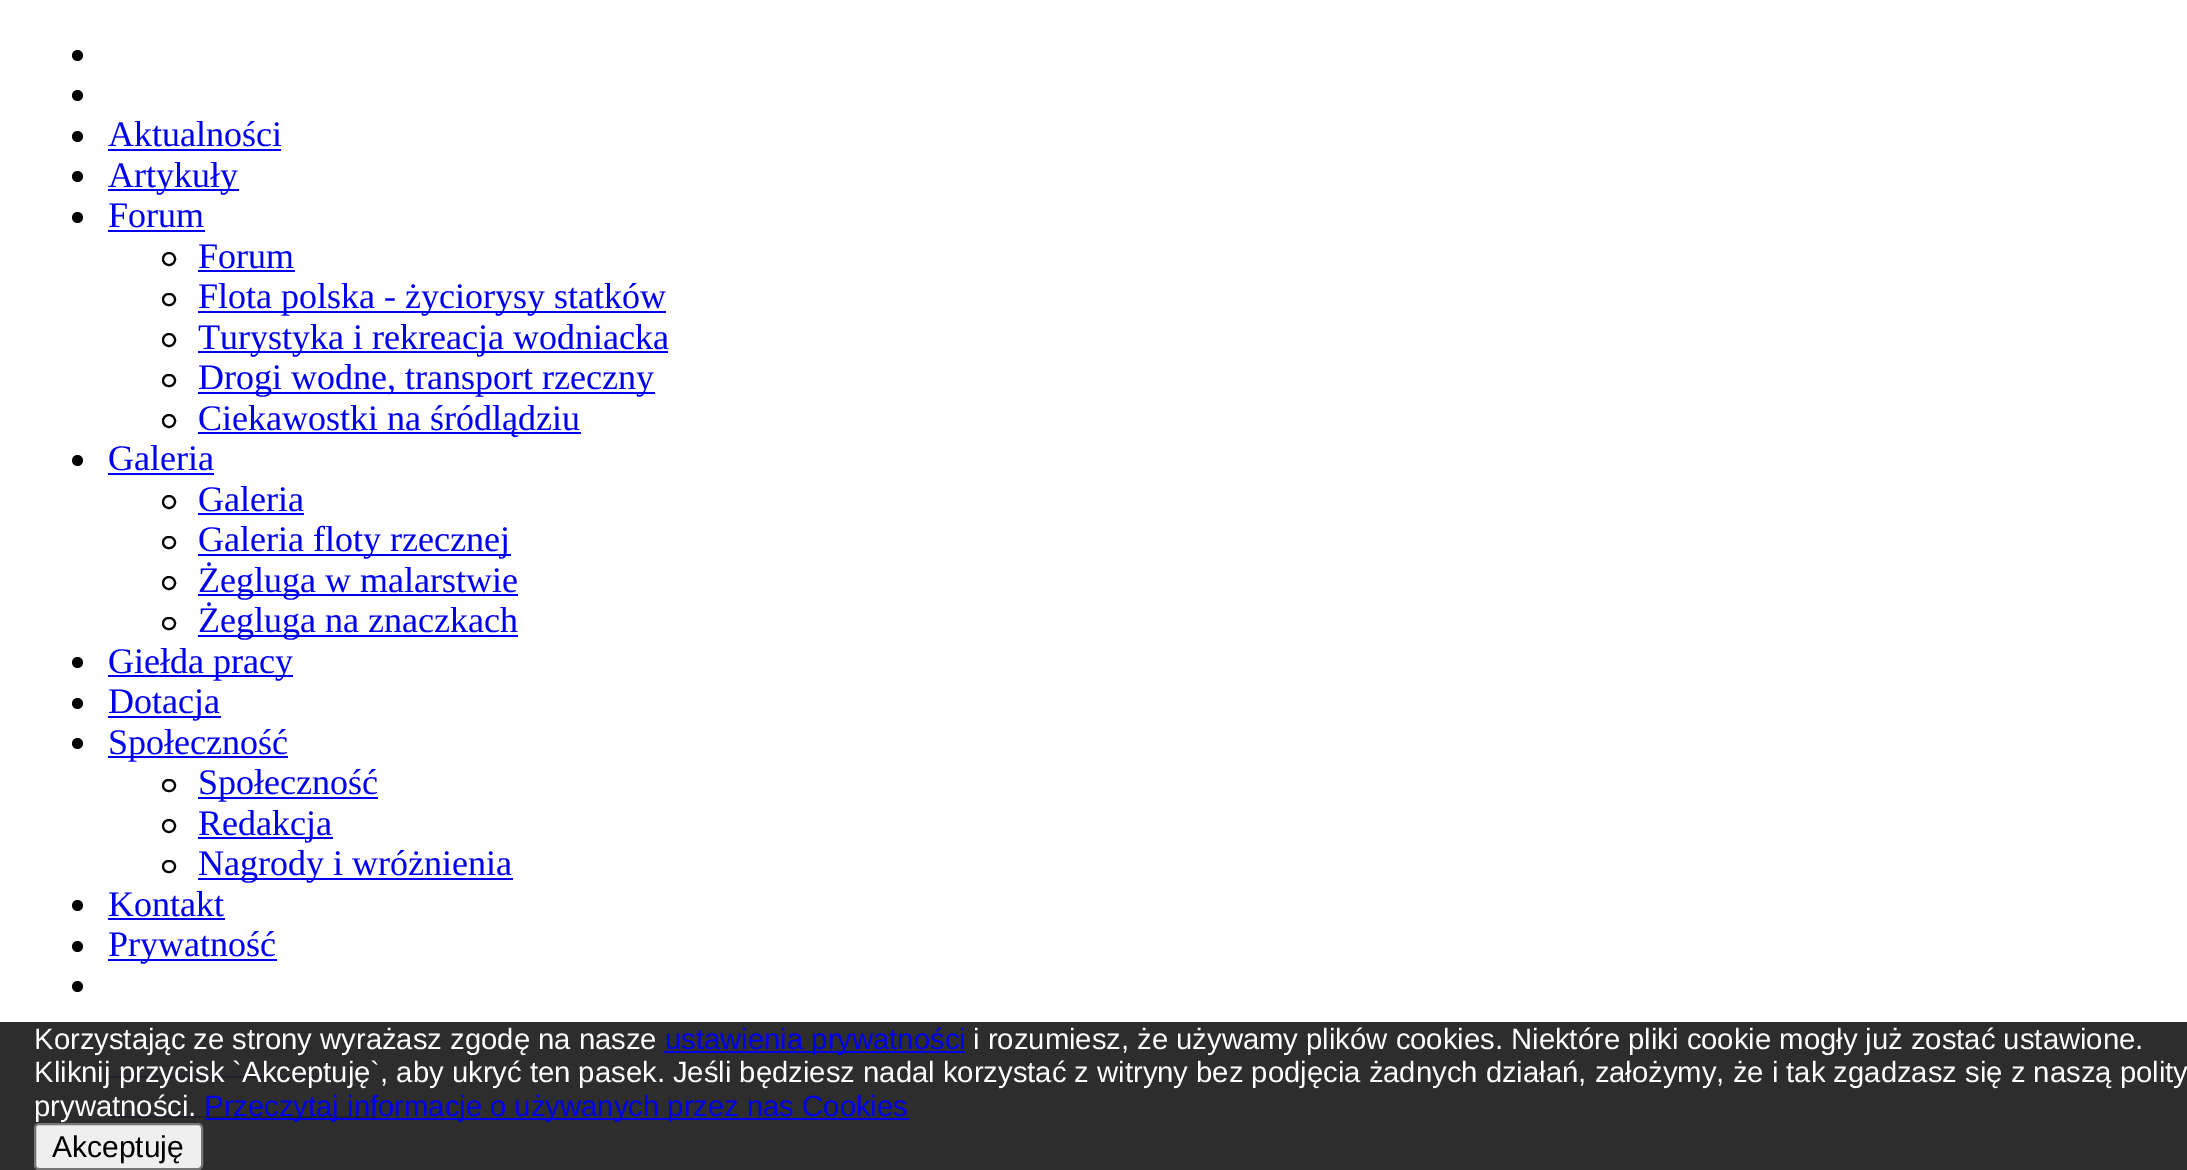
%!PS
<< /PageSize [2187 1170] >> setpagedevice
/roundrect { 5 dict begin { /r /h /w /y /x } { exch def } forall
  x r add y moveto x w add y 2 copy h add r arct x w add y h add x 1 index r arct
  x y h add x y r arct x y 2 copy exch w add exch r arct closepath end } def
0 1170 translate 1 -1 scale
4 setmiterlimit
1 setgray
0 0 2187 1170 rectfill
0.176 setgray
0 1022 2187 148 rectfill
0 setgray
newpath 77.5 55.5 5.5 0 360 arc closepath fill
newpath 77.5 95.5 5.5 0 360 arc closepath fill
newpath 77.5 136.5 5.5 0 360 arc closepath fill
/LiberationSerif-Regular [36 0 0 -36 0 0] selectfont
0 0 0.933 setrgbcolor
108 146 moveto (Aktualności) show
108 149 173 2 rectfill
0 setgray
newpath 77.5 176.5 5.5 0 360 arc closepath fill
0 0 0.933 setrgbcolor
108 189 131 2 rectfill
108 187 moveto (Artykuły) show
0 setgray
newpath 77.5 217.5 5.5 0 360 arc closepath fill
0 0 0.933 setrgbcolor
108 227 moveto (Forum) show
108 230 97 2 rectfill
0 setgray
2 setlinewidth
newpath 169 259 6 0 360 arc closepath stroke
0 0 0.933 setrgbcolor
198 268 moveto (Forum) show
198 270 97 2 rectfill
0 setgray
163 294 12 11 5.5 roundrect stroke
0 0 0.933 setrgbcolor
198 311 468 2 rectfill
198 308 moveto (Flota polska - życiorysy statków) show
0 setgray
newpath 169 340 6 0 360 arc closepath stroke
0 0 0.933 setrgbcolor
198 351 470 2 rectfill
198 349 moveto (Turystyka i rekreacja wodniacka) show
0 setgray
163 375 12 11 5.5 roundrect stroke
0 0 0.933 setrgbcolor
198 392 457 2 rectfill
198 389 moveto (Drogi wodne, transport rzeczny) show
0 setgray
newpath 169 421 6 0 360 arc closepath stroke
0 0 0.933 setrgbcolor
198 432 383 2 rectfill
198 430 moveto (Ciekawostki na śródlądziu) show
0 setgray
newpath 77.5 460.5 5.5 0 360 arc closepath fill
0 0 0.933 setrgbcolor
108 470 moveto (Galeria) show
108 473 106 2 rectfill
0 setgray
newpath 169 502 6 0 360 arc closepath stroke
0 0 0.933 setrgbcolor
198 511 moveto (Galeria) show
198 513 106 2 rectfill
0 setgray
163 537 12 11 5.5 roundrect stroke
0 0 0.933 setrgbcolor
198 554 313 2 rectfill
198 551 moveto (Galeria floty rzecznej) show
0 setgray
newpath 169 583 6 0 360 arc closepath stroke
0 0 0.933 setrgbcolor
198 594 320 2 rectfill
198 592 moveto (Żegluga w malarstwie) show
0 setgray
163 618 12 11 5.5 roundrect stroke
0 0 0.933 setrgbcolor
198 635 320 2 rectfill
198 632 moveto (Żegluga na znaczkach) show
0 setgray
newpath 77.5 662.5 5.5 0 360 arc closepath fill
0 0 0.933 setrgbcolor
108 675 185 2 rectfill
108 673 moveto (Giełda pracy) show
0 setgray
newpath 77.5 703.5 5.5 0 360 arc closepath fill
0 0 0.933 setrgbcolor
108 716 113 2 rectfill
108 713 moveto (Dotacja) show
0 setgray
newpath 77.5 743.5 5.5 0 360 arc closepath fill
0 0 0.933 setrgbcolor
108 756 180 2 rectfill
108 754 moveto (Społeczność) show
0 setgray
163 780 12 11 5.5 roundrect stroke
0 0 0.933 setrgbcolor
198 797 180 2 rectfill
198 794 moveto (Społeczność) show
0 setgray
newpath 169 826 6 0 360 arc closepath stroke
0 0 0.933 setrgbcolor
198 837 135 2 rectfill
198 835 moveto (Redakcja) show
0 setgray
163 861 12 11 5.5 roundrect stroke
0 0 0.933 setrgbcolor
198 878 315 2 rectfill
198 875 moveto (Nagrody i wróżnienia) show
0 setgray
newpath 77.5 905.5 5.5 0 360 arc closepath fill
0 0 0.933 setrgbcolor
108 916 moveto (Kontakt) show
108 918 117 2 rectfill
0 setgray
newpath 77.5 946.5 5.5 0 360 arc closepath fill
0 0 0.933 setrgbcolor
108 959 169 2 rectfill
108 956 moveto (Prywatność) show
0 setgray
newpath 77.5 986.5 5.5 0 360 arc closepath fill
/LiberationSans-Regular [29.25 0 0 -29.25 0 0] selectfont
1 setgray
34 1049 moveto (Korzystając ze strony wyrażasz zgodę na nasze) show
0 0 0.933 setrgbcolor
664 1051 301 2 rectfill
665 1049 moveto (ustawienia prywatności) show
1 setgray
973 1049 moveto (i rozumiesz, że używamy plików cookies. Niektóre pliki cookie mogły już zostać ustawione.) show
0.125 0.125 0.173 setrgbcolor
108 1076 209 2 rectfill
1 setgray
34 1082 moveto (Kliknij przycisk `Akceptuję`, aby ukryć ten pasek. Jeśli będziesz nadal korzystać z witryny bez podjęcia żadnych działań, założymy, że i tak zgadzasz się z naszą polity) show
0.125 0.125 0.173 setrgbcolor
108 1116 268 2 rectfill
1 setgray
34 1116 moveto (prywatności.) show
0 0 0.933 setrgbcolor
205 1118 704 2 rectfill
204 1116 moveto (Przeczytaj informacje o używanych przez nas Cookies) show
0.937 setgray
35 1124 167 45 4 roundrect gsave fill grestore
0.463 setgray
stroke
/LiberationSans-Regular [30 0 0 -30 0 0] selectfont
0 setgray
52 1157 moveto (Akceptuję) show
showpage
